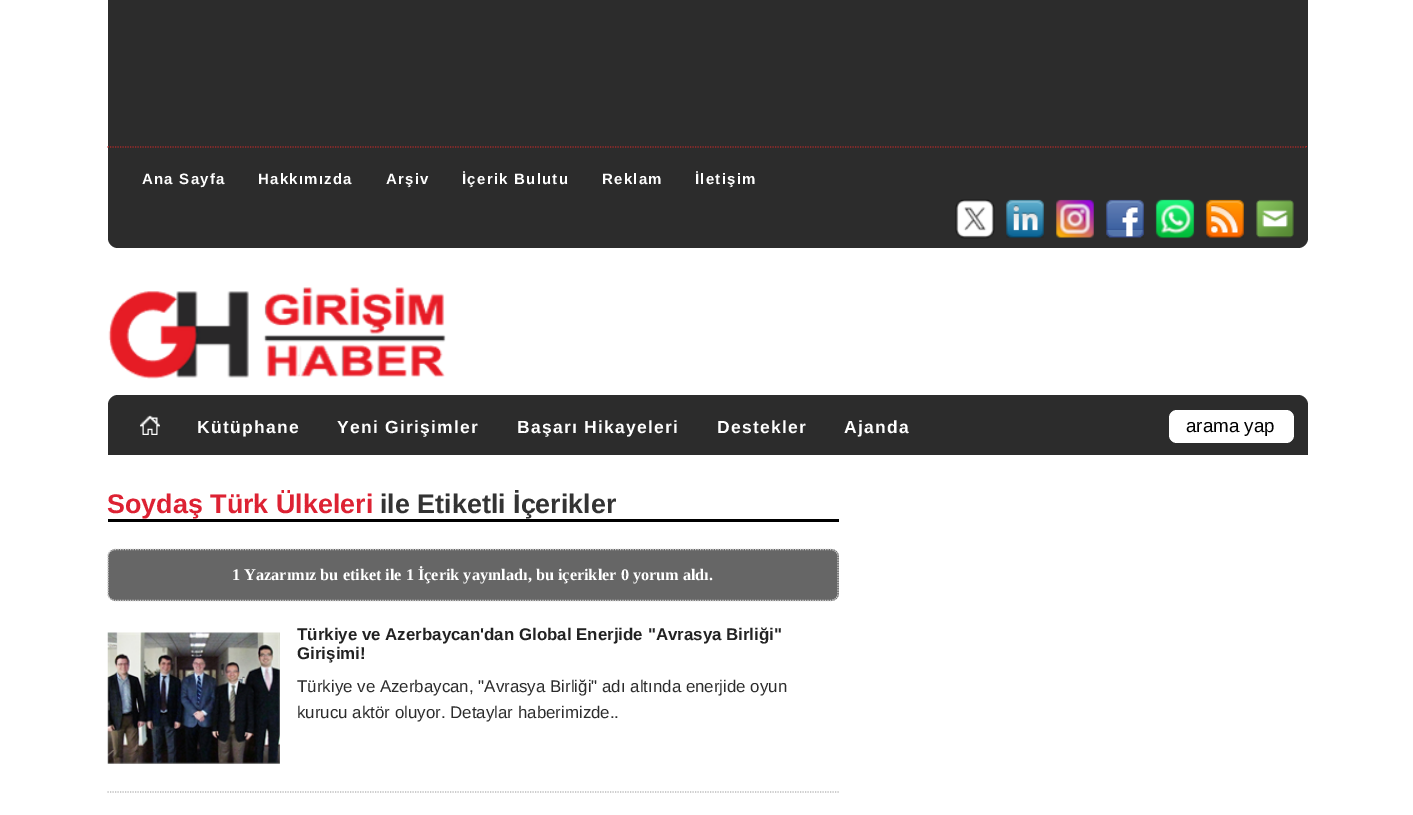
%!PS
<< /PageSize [1413 815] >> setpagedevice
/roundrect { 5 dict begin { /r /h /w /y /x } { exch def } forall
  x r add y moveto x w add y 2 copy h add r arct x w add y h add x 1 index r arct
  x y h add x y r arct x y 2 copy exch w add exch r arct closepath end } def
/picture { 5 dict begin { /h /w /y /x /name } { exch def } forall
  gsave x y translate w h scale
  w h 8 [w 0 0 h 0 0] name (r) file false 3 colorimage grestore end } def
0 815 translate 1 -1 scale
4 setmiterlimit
1 setgray
0 0 1413 815 rectfill
0.173 setgray
newpath 108 0 moveto 1308 0 lineto 1308 238 lineto 1308 243.5 1303.5 248 1298 248 curveto 118 248 lineto 112.5 248 108 243.5 108 238 curveto closepath fill
0.647 0.165 0.165 setrgbcolor
1306 146 1 1 rectfill
1.2 setlinewidth
[1.25 1.25] 0 setdash
newpath 107.5 147 moveto 1307.5 147 lineto stroke
108 146 1 1 rectfill
/LiberationSans-Bold [15 0 0 -15 0 0] selectfont
1 setgray
142 184 moveto 1.25 0 (Ana Sayfa) ashow
258 184 moveto 1.25 0 (Hakkımızda) ashow
386 184 moveto 1.25 0 (Arşiv) ashow
462 184 moveto 1.25 0 (İçerik Bulutu) ashow
602 184 moveto 1.25 0 (Reklam) ashow
695 184 moveto 1.25 0 (İletişim) ashow
(img1.rgb) 955 199 40 40 picture
(img2.rgb) 1006 199 38 39 picture
(img3.rgb) 1056 199 38 39 picture
(img4.rgb) 1106 199 38 39 picture
(img5.rgb) 1155 199 40 40 picture
(img6.rgb) 1206 199 38 39 picture
(img7.rgb) 1256 199 38 39 picture
(img8.rgb) 108 287 338 92 picture
0.173 setgray
newpath 118 395 moveto 1298 395 lineto 1303.5 395 1308 399.5 1308 405 curveto 1308 455 lineto 108 455 lineto 108 405 lineto 108 399.5 112.5 395 118 395 curveto closepath fill
(img9.rgb) 140 415 20 20 picture
/LiberationSans-Bold [17.5 0 0 -17.5 0 0] selectfont
1 setgray
197 433 moveto 1.25 0 (Kütüphane) ashow
337 433 moveto 1.25 0 (Yeni Girişimler) ashow
517 433 moveto 1.25 0 (Başarı Hikayeleri) ashow
717 433 moveto 1.25 0 (Destekler) ashow
844 433 moveto 1.25 0 (Ajanda) ashow
1169 410 125 33 8 roundrect fill
/LiberationSans-Regular [18.75 0 0 -18.75 0 0] selectfont
0 setgray
1186 432 moveto (arama yap) show
108 519 731 3 rectfill
/LiberationSans-Bold [26.9 0 0 -26.9 0 0] selectfont
0.867 0.133 0.2 setrgbcolor
107 513 moveto (Soydaş Türk Ülkeleri) show
0.2 setgray
380 513 moveto (ile Etiketli İçerikler) show
0.4 setgray
108 549 731 52 8 roundrect fill
0.8 setgray
newpath 115 549.5 moveto 831 549.5 lineto 835 549.5 838 552.5 838 556 curveto 838 594 lineto 838 597.5 835 600.5 831 600.5 curveto 115 600.5 lineto 111 600.5 108 597.5 108 594 curveto 108 556 lineto 108 552.5 111 549.5 115 549.5 curveto closepath stroke
/LiberationSerif-Bold [16.25 0 0 -16.25 0 0] selectfont
1 setgray
232 580 moveto (1 Yazarımız bu etiket ile 1 İçerik yayınladı, bu içerikler 0 yorum aldı.) show
0.733 setgray
newpath 107.5 792 moveto 839 792 lineto stroke
(img10.rgb) 107 632 173 132 picture
/LiberationSans-Bold [16.9 0 0 -16.9 0 0] selectfont
0.133 setgray
297 640 moveto (Türkiye ve Azerbaycan'dan Global Enerjide "Avrasya Birliği") show
297 659 moveto (Girişimi!) show
/LiberationSans-Regular [16.9 0 0 -16.9 0 0] selectfont
0.173 setgray
297 692 moveto (Türkiye ve Azerbaycan, "Avrasya Birliği" adı altında enerjide oyun) show
297 718 moveto (kurucu aktör oluyor. Detaylar haberimizde..) show
showpage
